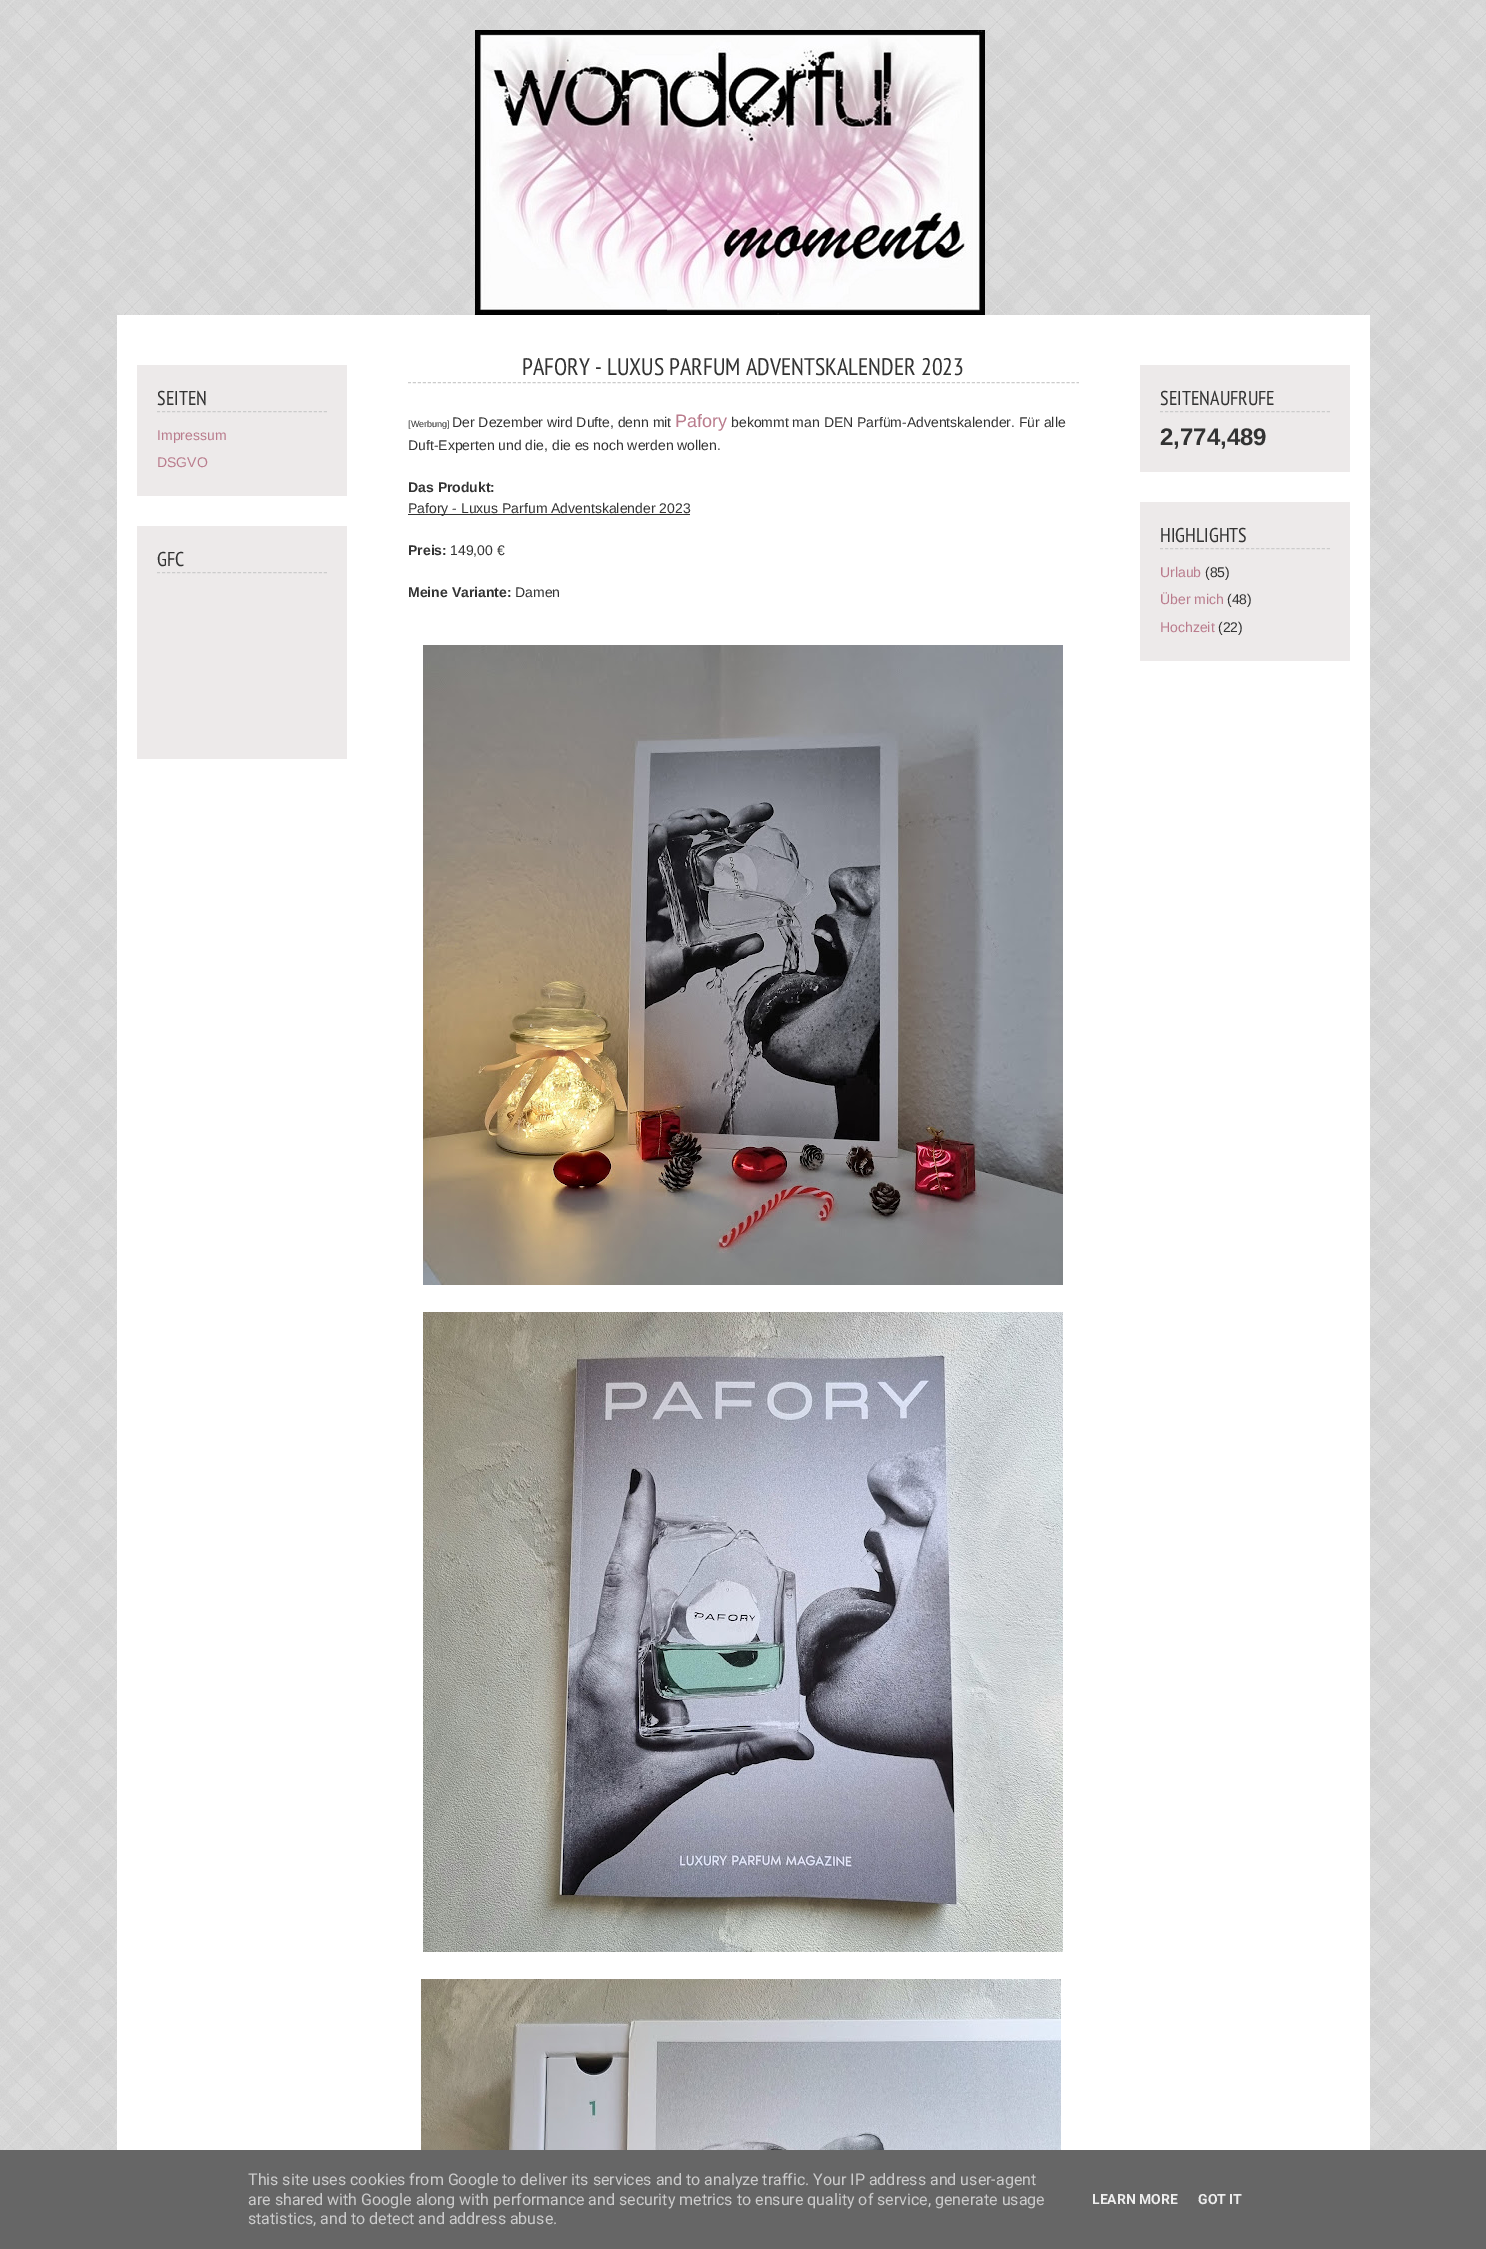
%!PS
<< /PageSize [1486 2249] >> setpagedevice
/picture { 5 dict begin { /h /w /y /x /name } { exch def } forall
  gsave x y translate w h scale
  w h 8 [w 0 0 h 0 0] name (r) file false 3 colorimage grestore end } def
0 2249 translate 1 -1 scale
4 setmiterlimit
1 setgray
0 0 1486 2249 rectfill
(img1.rgb) 0 0 1486 2150 picture
(img2.rgb) 475 30 510 285 picture
117 315 1253 1835 rectfill
0.929 0.918 0.918 setrgbcolor
137 365 210 131 rectfill
0.8 setgray
[3 2.06] 0 setdash
newpath 157 411.5 moveto 327 411.5 lineto stroke
/PTSansNarrow-Regular [20 0 0 -20 0 0] selectfont
0.2 setgray
157 405 moveto (SEITEN) show
/LiberationSans-Regular [14 0 0 -14 0 0] selectfont
0.729 0.486 0.553 setrgbcolor
157 440 moveto (Impressum) show
157 467 moveto (DSGVO) show
0.929 0.918 0.918 setrgbcolor
137 526 210 233 rectfill
0.8 setgray
newpath 157 572.5 moveto 327 572.5 lineto stroke
/PTSansNarrow-Regular [20 0 0 -20 0 0] selectfont
0.2 setgray
157 566 moveto (GFC) show
0.8 setgray
[3 1.99] 0 setdash
newpath 408 382.5 moveto 1079 382.5 lineto stroke
/PTSansNarrow-Regular [24 0 0 -24 0 0] selectfont
0.2 setgray
522 375 moveto (PAFORY - LUXUS PARFUM ADVENTSKALENDER 2023) show
/LiberationSans-Regular [9 0 0 -9 0 0] selectfont
408 427 moveto ([Werbung]) show
/LiberationSans-Regular [14 0 0 -14 0 0] selectfont
452 427 moveto (Der Dezember wird Dufte, denn mit) show
/LiberationSans-Regular [18 0 0 -18 0 0] selectfont
0.729 0.486 0.553 setrgbcolor
675 427 moveto (Pafory) show
/LiberationSans-Regular [14 0 0 -14 0 0] selectfont
0.2 setgray
731 427 moveto (bekommt man DEN Parfüm-Adventskalender. Für alle) show
408 450 moveto (Duft-Experten und die, die es noch werden wollen.) show
/LiberationSans-Bold [14 0 0 -14 0 0] selectfont
408 492 moveto (Das Produkt:) show
408 514 282 1 rectfill
/LiberationSans-Regular [14 0 0 -14 0 0] selectfont
408 513 moveto (Pafory - Luxus Parfum Adventskalender 2023) show
/LiberationSans-Bold [14 0 0 -14 0 0] selectfont
408 555 moveto (Preis:) show
/LiberationSans-Regular [14 0 0 -14 0 0] selectfont
450 555 moveto (149,00 €) show
/LiberationSans-Bold [14 0 0 -14 0 0] selectfont
408 597 moveto (Meine Variante:) show
/LiberationSans-Regular [14 0 0 -14 0 0] selectfont
515 597 moveto (Damen) show
(img3.rgb) 423 645 640 640 picture
(img4.rgb) 423 1312 640 640 picture
(img5.rgb) 421 1979 640 171 picture
0.929 0.918 0.918 setrgbcolor
1140 365 210 107 rectfill
0.8 setgray
[3 2.06] 0 setdash
newpath 1160 411.5 moveto 1330 411.5 lineto stroke
/PTSansNarrow-Regular [20 0 0 -20 0 0] selectfont
0.2 setgray
1160 405 moveto (SEITENAUFRUFE) show
/LiberationSans-Bold [24 0 0 -24 0 0] selectfont
1160 445 moveto (2,774,489) show
0.929 0.918 0.918 setrgbcolor
1140 502 210 159 rectfill
0.8 setgray
newpath 1160 548.5 moveto 1330 548.5 lineto stroke
/PTSansNarrow-Regular [20 0 0 -20 0 0] selectfont
0.2 setgray
1160 542 moveto (HIGHLIGHTS) show
/LiberationSans-Regular [14 0 0 -14 0 0] selectfont
0.729 0.486 0.553 setrgbcolor
1160 577 moveto (Urlaub) show
0.2 setgray
1205 577 moveto (\(85\)) show
0.729 0.486 0.553 setrgbcolor
1160 604 moveto (Über mich) show
0.2 setgray
1227 604 moveto (\(48\)) show
0.729 0.486 0.553 setrgbcolor
1160 632 moveto (Hochzeit) show
0.2 setgray
1218 632 moveto (\(22\)) show
0.4 setgray
0 2150 1486 99 rectfill
/Roboto-Regular [16 0 0 -16 0 0] selectfont
0.8 setgray
248 2185 moveto (This site uses cookies from Google to deliver its services and to analyze traffic. Your IP address and user-agent) show
248 2205 moveto (are shared with Google along with performance and security metrics to ensure quality of service, generate usage) show
248 2224 moveto (statistics, and to detect and address abuse.) show
/Roboto-Bold [14 0 0 -14 0 0] selectfont
0.933 setgray
1092 2204 moveto (LEARN MORE) show
1198 2204 moveto (GOT IT) show
showpage
